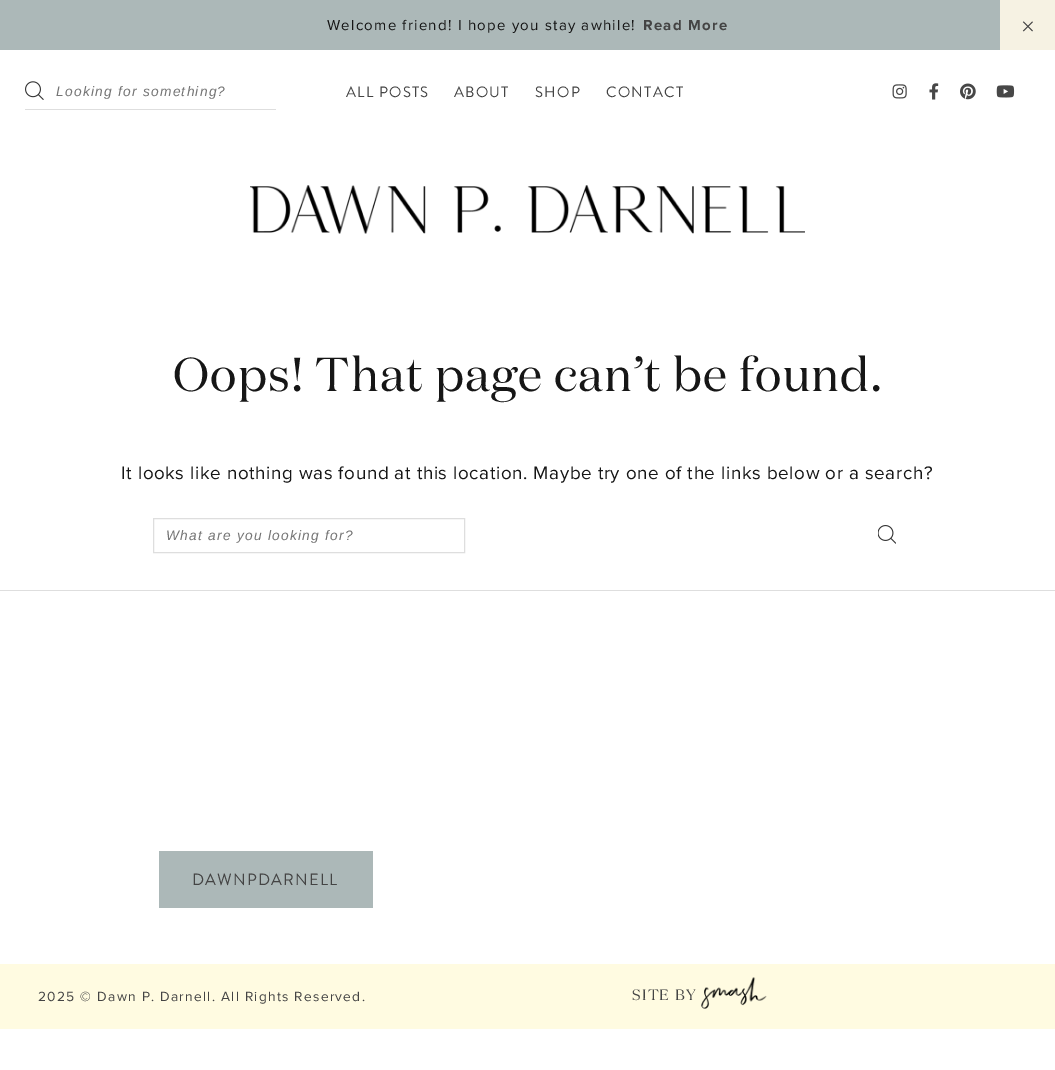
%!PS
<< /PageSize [1055 1070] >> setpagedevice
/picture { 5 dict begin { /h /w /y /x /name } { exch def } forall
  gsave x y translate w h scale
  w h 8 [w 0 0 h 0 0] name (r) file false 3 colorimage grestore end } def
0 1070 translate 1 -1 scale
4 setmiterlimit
1 setgray
0 0 1055 1070 rectfill
0.675 0.722 0.722 setrgbcolor
0 0 1000 50 rectfill
/ProximaNova-Regular [15 0 0 -15 0 0] selectfont
0.086 setgray
327 30 moveto 1.25 0 (Welcome friend! I hope you stay awhile!) ashow
/ProximaNova-Bold [15 0 0 -15 0 0] selectfont
0.267 setgray
643 30 moveto 1.25 0 (Read More) ashow
0.965 0.949 0.89 setrgbcolor
1000 0 55 50 rectfill
(img1.rgb) 1022 21 11 11 picture
(img2.rgb) 25 81 19 19 picture
0.871 setgray
25 109 251 1 rectfill
/LiberationSans-Italic [13.75 0 0 -13.75 0 0] selectfont
0.459 setgray
56 96 moveto 1.25 0 (Looking for something?) ashow
/BrandonGrotesque-Regular [15 0 0 -15 0 0] selectfont
0.267 setgray
346 97 moveto 1.25 0 (ALL POSTS) ashow
454 97 moveto 1.25 0 (ABOUT) ashow
535 97 moveto 1.25 0 (SHOP) ashow
606 97 moveto 1.25 0 (CONTACT) ashow
(img3.rgb) 892 84 15 15 picture
(img4.rgb) 929 83 10 17 picture
(img5.rgb) 960 83 16 17 picture
(img6.rgb) 996 85 19 13 picture
(img7.rgb) 250 185 555 49 picture
/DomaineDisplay-Regular [47.5 0 0 -47.5 0 0] selectfont
0.086 setgray
173 391 moveto 1.25 0 (Oops! That page can’t be found.) ashow
/ProximaNova-Regular [18.75 0 0 -18.75 0 0] selectfont
121 479 moveto 0.62 0 (It looks like nothing was found at this location. Maybe try one of the links below or a search?) ashow
0.871 setgray
153.5 518.5 311 34 rectstroke
/LiberationSans-Italic [13.75 0 0 -13.75 0 0] selectfont
0.459 setgray
166 540 moveto 1.25 0 (What are you looking for?) ashow
(img8.rgb) 878 525 18 19 picture
0.871 setgray
0 590 1055 1 rectfill
0.675 0.722 0.722 setrgbcolor
159 851 214 57 rectfill
/BrandonGrotesque-Regular [16.25 0 0 -16.25 0 0] selectfont
0.267 setgray
192 885 moveto 1.25 0 (DAWNPDARNELL) ashow
1 0.984 0.882 setrgbcolor
0 964 1055 65 rectfill
/ProximaNova-Regular [13.75 0 0 -13.75 0 0] selectfont
0.267 setgray
38 1001 moveto 1.25 0 (2025 © Dawn P. Darnell. All Rights Reserved.) ashow
/DomaineDisplay-Regular [15 0 0 -15 0 0] selectfont
632 1000 moveto 1.25 0 (SITE BY) ashow
(img9.rgb) 701 977 66 32 picture
showpage
